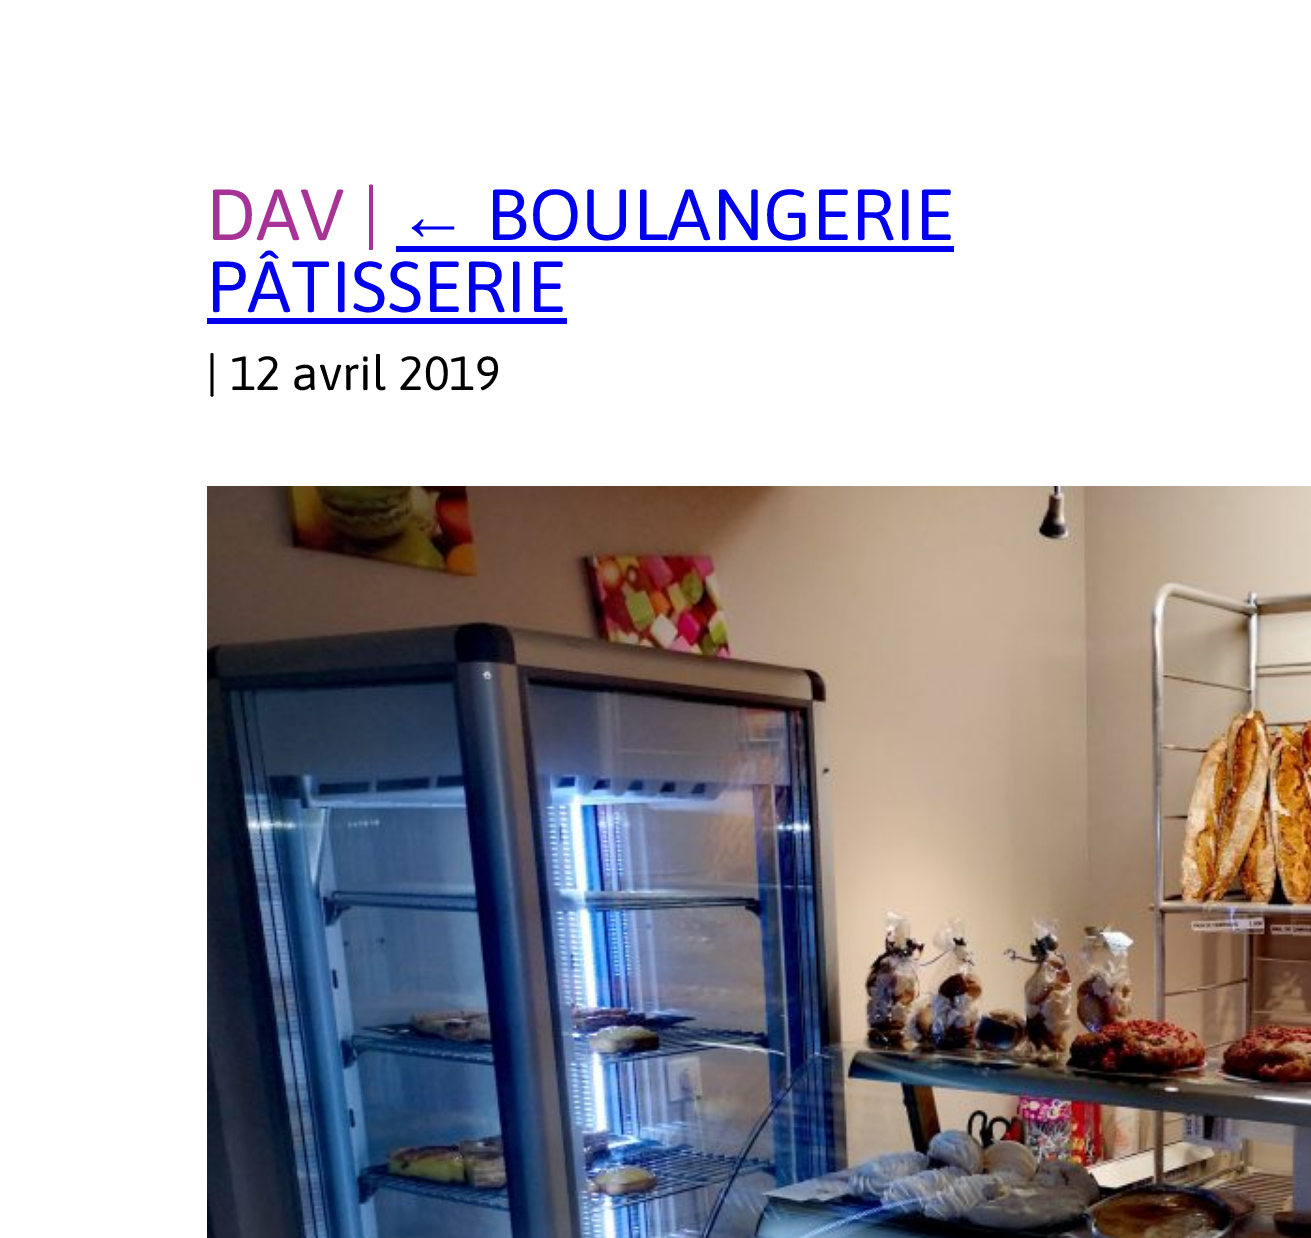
%!PS
<< /PageSize [1311 1238] >> setpagedevice
/picture { 5 dict begin { /h /w /y /x /name } { exch def } forall
  gsave x y translate w h scale
  w h 8 [w 0 0 h 0 0] name (r) file false 3 colorimage grestore end } def
0 1238 translate 1 -1 scale
4 setmiterlimit
1 setgray
0 0 1311 1238 rectfill
/Asap-Regular [72 0 0 -72 0 0] selectfont
0.655 0.2 0.588 setrgbcolor
206 240 moveto (DAV |) show
/LiberationSans-Regular [72 0 0 -72 0 0] selectfont
0 0 0.933 setrgbcolor
397 240 moveto (←) show
396 246 558 6 rectfill
/Asap-Regular [72 0 0 -72 0 0] selectfont
486 240 moveto (BOULANGERIE) show
206 312 moveto (PÂTISSERIE) show
207 318 360 6 rectfill
/Asap-Regular [48 0 0 -48 0 0] selectfont
0 setgray
206 390 moveto (| 12 avril 2019) show
(img1.rgb) 207 486 1104 752 picture
showpage
